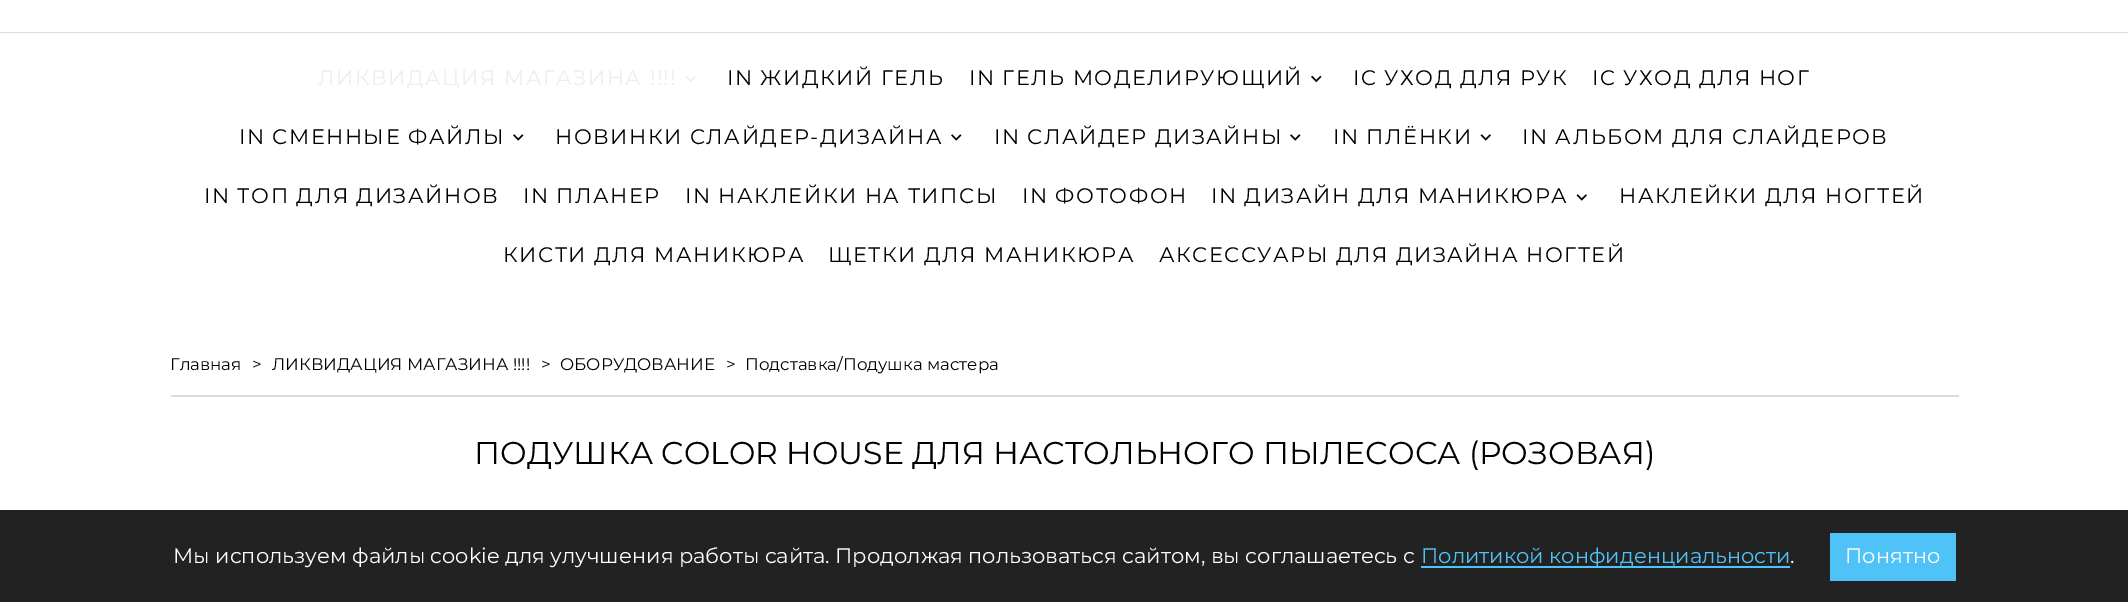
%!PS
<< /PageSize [2128 602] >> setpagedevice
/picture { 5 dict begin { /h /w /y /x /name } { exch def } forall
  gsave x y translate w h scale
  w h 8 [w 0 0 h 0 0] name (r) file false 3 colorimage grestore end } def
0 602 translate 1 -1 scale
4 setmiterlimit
1 setgray
0 0 2128 602 rectfill
0.827 0.871 0.906 setrgbcolor
0 32 2128 1 rectfill
/Montserrat-Regular [21 0 0 -21 0 0] selectfont
0.929 0.929 0.949 setrgbcolor
318 85 moveto 1.5 0 (ЛИКВИДАЦИЯ МАГАЗИНА !!!!) ashow
(img1.rgb) 686 76 10 6 picture
0 setgray
727 85 moveto 1.5 0 (IN ЖИДКИЙ ГЕЛЬ) ashow
969 85 moveto 1.5 0 (IN ГЕЛЬ МОДЕЛИРУЮЩИЙ) ashow
(img2.rgb) 1311 75 11 8 picture
1353 85 moveto 1.5 0 (IC УХОД ДЛЯ РУК) ashow
1592 85 moveto 1.5 0 (IC УХОД ДЛЯ НОГ) ashow
239 144 moveto 1.5 0 (IN СМЕННЫЕ ФАЙЛЫ) ashow
(img3.rgb) 513 134 11 7 picture
555 144 moveto 1.5 0 (НОВИНКИ СЛАЙДЕР-ДИЗАЙНА) ashow
(img3.rgb) 951 134 11 7 picture
994 144 moveto 1.5 0 (IN СЛАЙДЕР ДИЗАЙНЫ) ashow
(img3.rgb) 1290 134 11 7 picture
1333 144 moveto 1.5 0 (IN ПЛЁНКИ) ashow
(img4.rgb) 1480 134 11 7 picture
1522 144 moveto 1.5 0 (IN АЛЬБОМ ДЛЯ СЛАЙДЕРОВ) ashow
204 203 moveto 1.5 0 (IN ТОП ДЛЯ ДИЗАЙНОВ) ashow
523 203 moveto 1.5 0 (IN ПЛАНЕР) ashow
685 203 moveto 1.5 0 (IN НАКЛЕЙКИ НА ТИПСЫ) ashow
1022 203 moveto 1.5 0 (IN ФОТОФОН) ashow
1211 203 moveto 1.5 0 (IN ДИЗАЙН ДЛЯ МАНИКЮРА) ashow
(img4.rgb) 1576 194 11 7 picture
1619 203 moveto 1.5 0 (НАКЛЕЙКИ ДЛЯ НОГТЕЙ) ashow
503 262 moveto 1.5 0 (КИСТИ ДЛЯ МАНИКЮРА) ashow
828 262 moveto 1.5 0 (ЩЕТКИ ДЛЯ МАНИКЮРА) ashow
1159 262 moveto 1.5 0 (АКСЕССУАРЫ ДЛЯ ДИЗАЙНА НОГТЕЙ) ashow
0.827 0.871 0.906 setrgbcolor
171 395 1788 2 rectfill
/Montserrat-Regular [16.75 0 0 -16.75 0 0] selectfont
0 setgray
170 370 moveto (Главная) show
252 370 moveto (>) show
272 370 moveto (ЛИКВИДАЦИЯ МАГАЗИНА !!!!) show
541 370 moveto (>) show
560 370 moveto (ОБОРУДОВАНИЕ) show
726 370 moveto (>) show
745 370 moveto (Подставка/Подушка мастера) show
/Montserrat-Regular [31.5 0 0 -31.5 0 0] selectfont
474 464 moveto (ПОДУШКА COLOR HOUSE ДЛЯ НАСТОЛЬНОГО ПЫЛЕСОСА \(РОЗОВАЯ\)) show
0.133 setgray
0 510 2128 92 rectfill
/Montserrat-Regular [21 0 0 -21 0 0] selectfont
1 setgray
173 563 moveto (Мы используем файлы cookie для улучшения работы сайта. Продолжая пользоваться сайтом, вы соглашаетесь с) show
0.31 0.765 0.969 setrgbcolor
1421 566 369 2 rectfill
1421 563 moveto (Политикой конфиденциальности) show
1 setgray
1790 563 moveto (.) show
0.31 0.765 0.969 setrgbcolor
1830 533 126 48 rectfill
1 setgray
1845 563 moveto (Понятно) show
showpage
